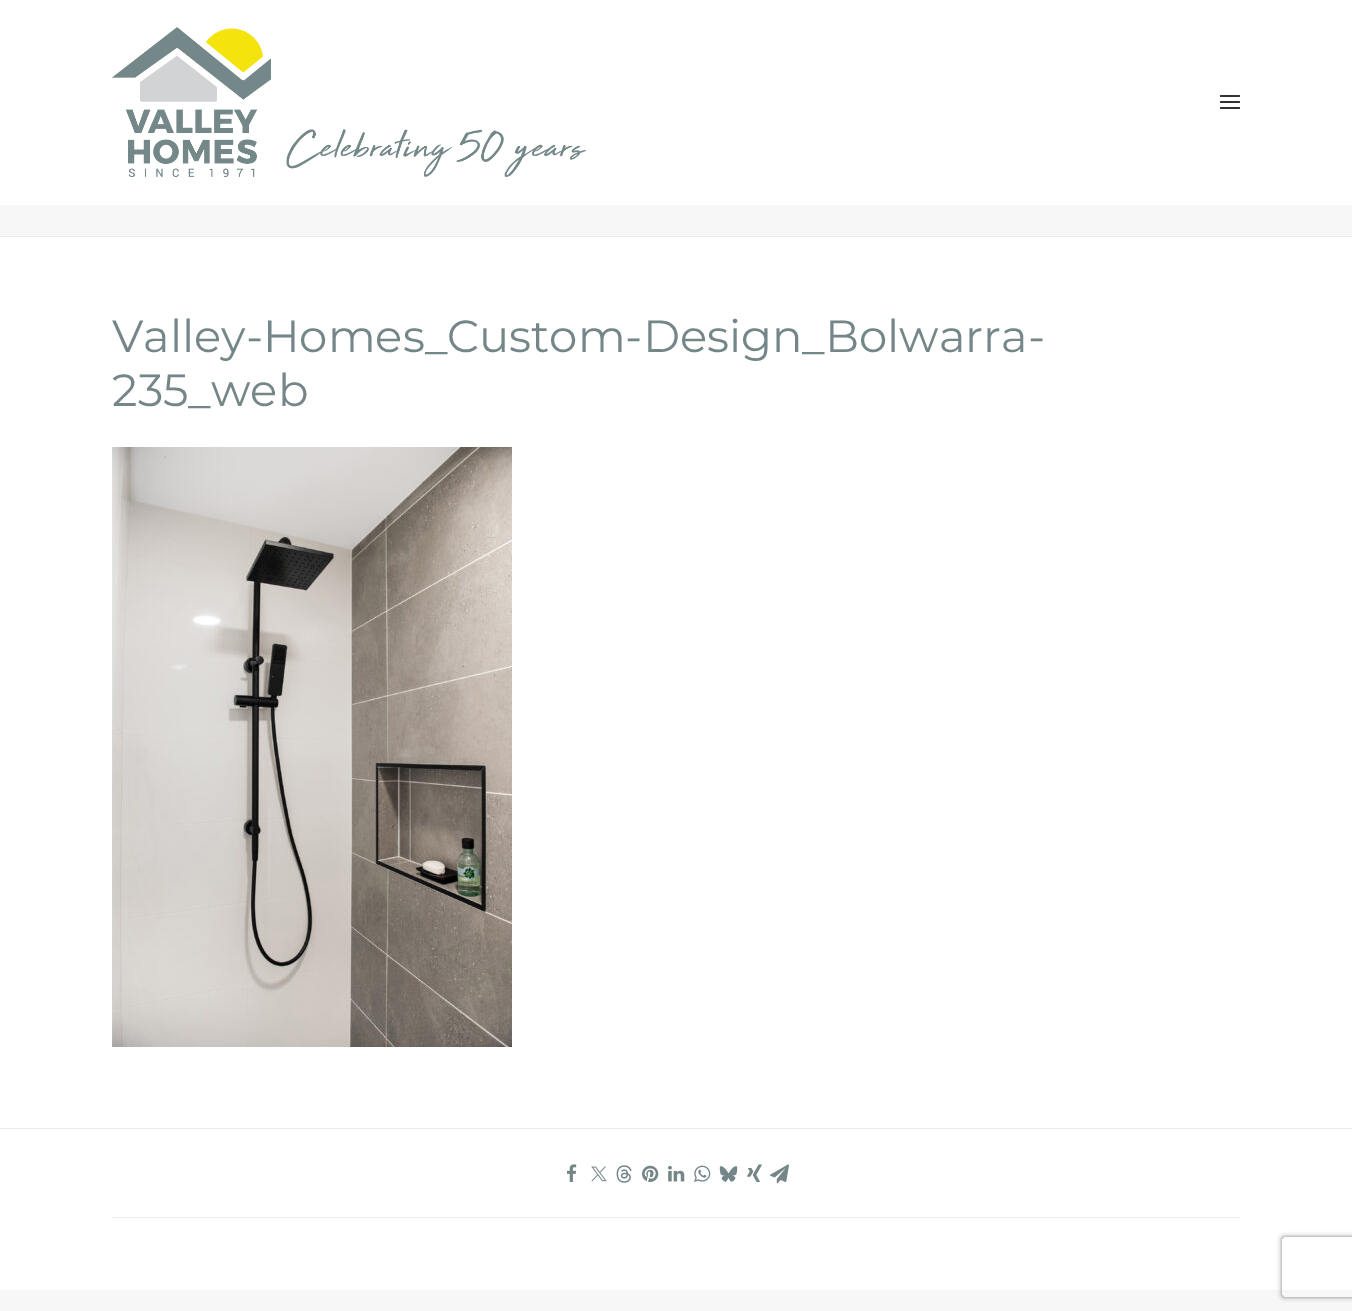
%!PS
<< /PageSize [1352 1311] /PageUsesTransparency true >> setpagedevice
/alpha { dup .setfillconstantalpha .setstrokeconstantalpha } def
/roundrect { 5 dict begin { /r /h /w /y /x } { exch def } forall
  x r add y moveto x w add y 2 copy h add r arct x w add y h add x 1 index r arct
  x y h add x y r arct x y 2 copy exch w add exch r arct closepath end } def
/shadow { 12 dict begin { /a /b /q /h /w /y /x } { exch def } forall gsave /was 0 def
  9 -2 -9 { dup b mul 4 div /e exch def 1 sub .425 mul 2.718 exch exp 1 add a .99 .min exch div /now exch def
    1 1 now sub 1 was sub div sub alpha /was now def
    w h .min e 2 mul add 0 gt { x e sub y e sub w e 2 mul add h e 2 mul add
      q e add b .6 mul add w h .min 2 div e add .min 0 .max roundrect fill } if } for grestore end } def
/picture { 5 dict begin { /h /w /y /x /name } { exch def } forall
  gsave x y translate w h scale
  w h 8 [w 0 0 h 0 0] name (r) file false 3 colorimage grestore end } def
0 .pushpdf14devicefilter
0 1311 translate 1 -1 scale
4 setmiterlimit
1 setgray
0 0 1352 1311 rectfill
(img1.rgb) 112 27 159 150 picture
(img2.rgb) 286 129 300 48 picture
0.188 0.192 0.2 setrgbcolor
1220 101 20 2 1 roundrect fill
1220 95 20 2 1 roundrect fill
1220 107 20 2 1 roundrect fill
0.969 setgray
0 205 1352 31 rectfill
0.918 setgray
0 236 1352 1 rectfill
/Montserrat-Regular [45 0 0 -45 0 0] selectfont
0.459 0.525 0.533 setrgbcolor
112 352 moveto (Valley-Homes_Custom-Design_Bolwarra-) show
112 406 moveto (235_web) show
(img3.rgb) 112 447 400 600 picture
0.918 setgray
0 1128 1352 1 rectfill
112 1217 1128 1 rectfill
(img4.rgb) 567 1164 10 18 picture
(img5.rgb) 591 1166 16 16 picture
(img6.rgb) 616 1165 16 18 picture
(img7.rgb) 642 1165 17 17 picture
(img8.rgb) 668 1166 17 16 picture
(img9.rgb) 694 1165 17 17 picture
(img10.rgb) 719 1166 19 16 picture
(img11.rgb) 747 1164 15 18 picture
(img12.rgb) 770 1164 19 20 picture
0.969 setgray
0 1290 1352 21 rectfill
gsave
newpath 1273 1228 moveto 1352 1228 lineto 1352 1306 lineto 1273 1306 lineto closepath 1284 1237 moveto 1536 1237 lineto 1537 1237 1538 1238 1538 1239 curveto 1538 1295 lineto 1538 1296 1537 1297 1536 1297 curveto 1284 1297 lineto 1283 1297 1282 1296 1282 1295 curveto 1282 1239 lineto 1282 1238 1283 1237 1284 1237 curveto closepath eoclip newpath
0.502 setgray
1282 1237 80 60 2 2.5 1 shadow
grestore
.poppdf14devicefilter showpage
